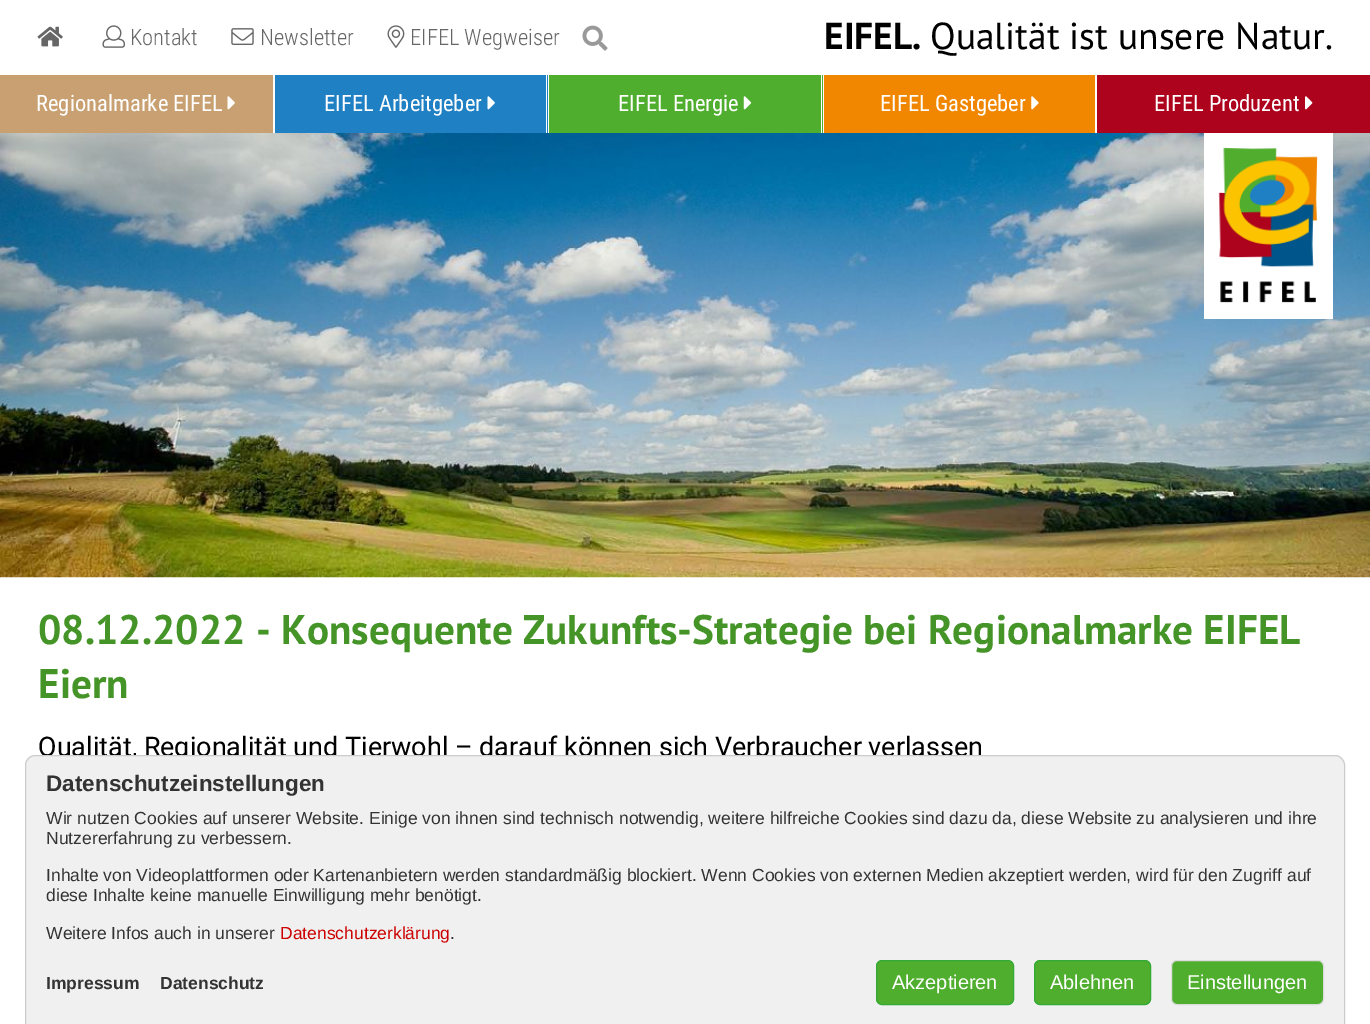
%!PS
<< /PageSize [1370 1024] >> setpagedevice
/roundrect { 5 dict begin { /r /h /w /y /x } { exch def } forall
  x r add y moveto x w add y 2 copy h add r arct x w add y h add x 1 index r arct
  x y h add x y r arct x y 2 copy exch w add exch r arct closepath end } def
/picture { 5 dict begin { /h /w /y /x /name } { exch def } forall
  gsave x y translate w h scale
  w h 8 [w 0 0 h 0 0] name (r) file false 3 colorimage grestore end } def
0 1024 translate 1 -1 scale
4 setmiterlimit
1 setgray
0 0 1370 1024 rectfill
(img1.rgb) 37 26 26 21 picture
(img2.rgb) 102 25 23 23 picture
/RobotoCondensed-Light [22.5 0 0 -22.5 0 0] selectfont
0.4 setgray
130 45 moveto (Kontakt) show
(img3.rgb) 231 28 23 17 picture
260 45 moveto (Newsletter) show
(img4.rgb) 387 25 18 23 picture
410 45 moveto (EIFEL Wegweiser) show
(img5.rgb) 582 25 26 26 picture
/PTSans-Bold [37.5 0 0 -37.5 0 0] selectfont
0 setgray
824 49 moveto (EIFEL.) show
/PTSans-Regular [37.5 0 0 -37.5 0 0] selectfont
930 49 moveto (Qualität ist) show
1118 49 moveto (unsere Natur.) show
0.784 0.627 0.443 setrgbcolor
0 75 273 58 rectfill
/RobotoCondensed-Regular [22.5 0 0 -22.5 0 0] selectfont
1 setgray
36 111 moveto (Regionalmarke EIFEL) show
(img6.rgb) 227 96 8 14 picture
0.125 0.502 0.769 setrgbcolor
275 75 273 58 rectfill
1 setgray
546 75 1 58 rectfill
324 111 moveto (EIFEL Arbeitgeber) show
(img7.rgb) 487 96 8 14 picture
0.314 0.682 0.184 setrgbcolor
549 75 274 58 rectfill
1 setgray
821 75 1 58 rectfill
618 111 moveto (EIFEL Energie) show
(img8.rgb) 743 96 9 14 picture
0.945 0.529 0 setrgbcolor
824 75 271 58 rectfill
1 setgray
880 111 moveto (EIFEL Gastgeber) show
(img9.rgb) 1031 96 8 14 picture
0.682 0.012 0.114 setrgbcolor
1097 75 273 58 rectfill
1 setgray
1154 111 moveto (EIFEL Produzent) show
(img10.rgb) 1305 96 8 14 picture
(img11.rgb) 0 133 1370 445 picture
1204 133 129 186 rectfill
(img12.rgb) 1218 147 100 156 picture
/PTSans-Bold [41.25 0 0 -41.25 0 0] selectfont
0.271 0.58 0.157 setrgbcolor
38 644 moveto (08.12.2022 - Konsequente Zukunfts-Strategie bei Regionalmarke EIFEL) show
38 698 moveto (Eiern) show
/Roboto-Regular [27 0 0 -27 0 0] selectfont
0 setgray
38 756 moveto (Qualität, Regionalität und Tierwohl – darauf können sich Verbraucher verlassen) show
0.941 setgray
newpath 35 755.5 moveto 1335 755.5 lineto 1340 755.5 1344.5 760 1344.5 765 curveto 1344.5 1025.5 lineto 25.5 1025.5 lineto 25.5 765 lineto 25.5 760 30 755.5 35 755.5 curveto closepath gsave fill grestore
0.8 setgray
stroke
/LiberationSans-Bold [22.5 0 0 -22.5 0 0] selectfont
0.2 setgray
46 791 moveto (Datenschutzeinstellungen) show
/LiberationSans-Regular [17.5 0 0 -17.5 0 0] selectfont
46 824 moveto (Wir nutzen Cookies auf unserer Website. Einige von ihnen sind technisch notwendig, weitere hilfreiche Cookies sind dazu da, diese Website zu analysieren und ihre) show
46 844 moveto (Nutzererfahrung zu verbessern.) show
46 881 moveto (Inhalte von Videoplattformen oder Kartenanbietern werden standardmäßig blockiert. Wenn Cookies von externen Medien akzeptiert werden, wird für den Zugriff auf) show
46 901 moveto (diese Inhalte keine manuelle Einwilligung mehr benötigt.) show
46 939 moveto (Weitere Infos auch in unserer) show
0.8 0 0 setrgbcolor
280 939 moveto (Datenschutzerklärung) show
0.2 setgray
450 939 moveto (.) show
/LiberationSans-Bold [17.5 0 0 -17.5 0 0] selectfont
46 989 moveto (Impressum) show
160 989 moveto (Datenschutz) show
0.314 0.682 0.184 setrgbcolor
876.5 960.5 137 44 5.5 roundrect gsave fill grestore
0.2 0.667 0.2 setrgbcolor
stroke
/LiberationSans-Regular [20 0 0 -20 0 0] selectfont
1 setgray
892 989 moveto (Akzeptieren) show
0.314 0.682 0.184 setrgbcolor
1034.5 960.5 116 44 5.5 roundrect gsave fill grestore
0.2 0.667 0.2 setrgbcolor
stroke
1 setgray
1050 989 moveto (Ablehnen) show
0.314 0.682 0.184 setrgbcolor
1171.5 960.5 152 44 5.5 roundrect gsave fill grestore
0.863 setgray
stroke
1 setgray
1187 989 moveto (Einstellungen) show
showpage
